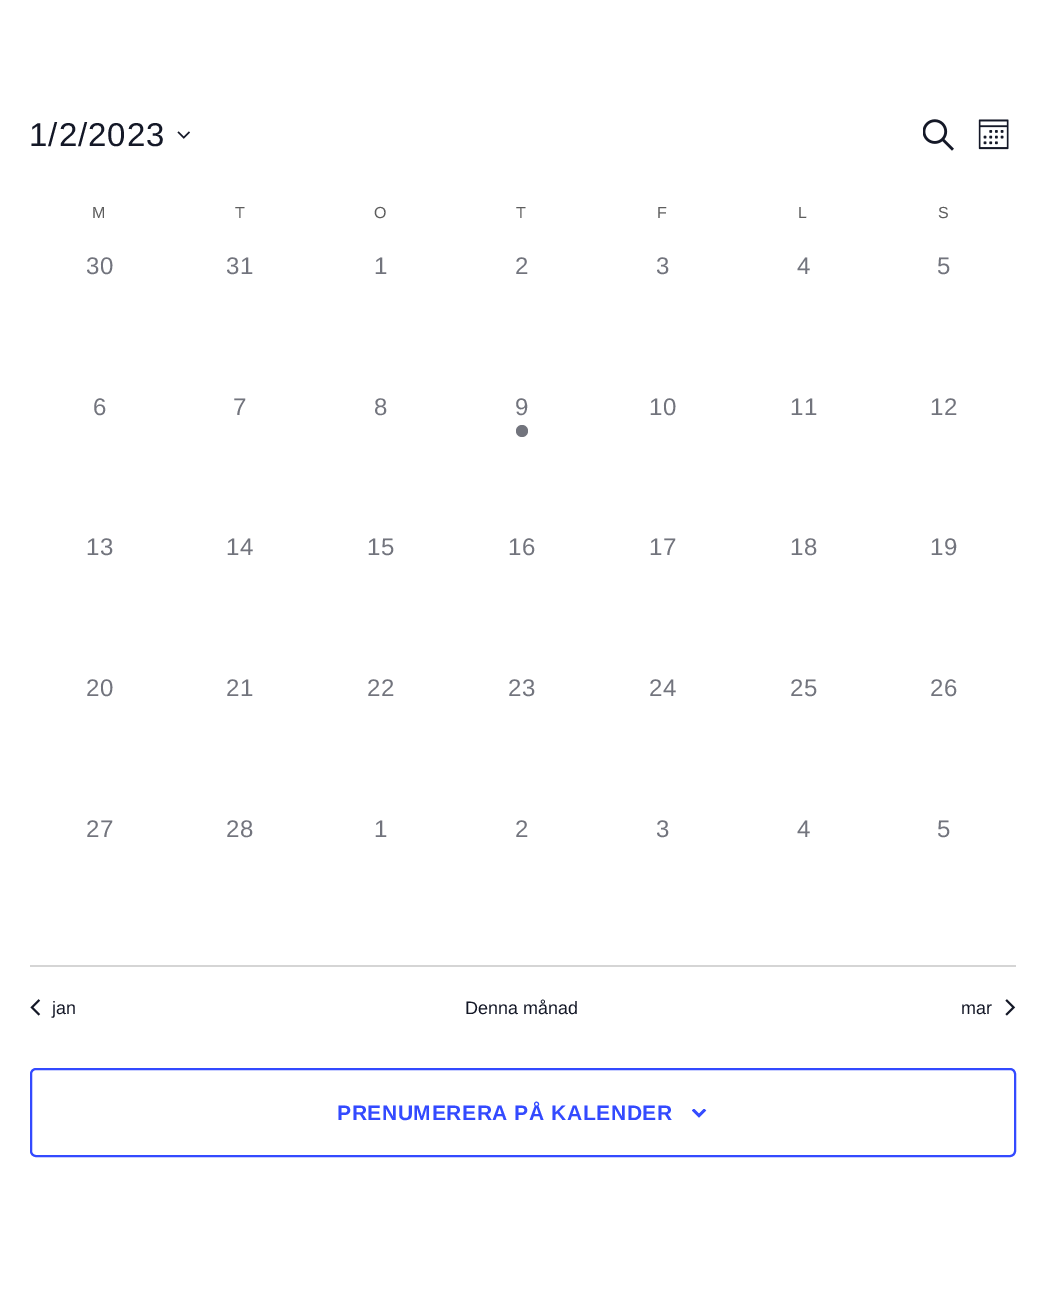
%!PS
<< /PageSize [1043 1304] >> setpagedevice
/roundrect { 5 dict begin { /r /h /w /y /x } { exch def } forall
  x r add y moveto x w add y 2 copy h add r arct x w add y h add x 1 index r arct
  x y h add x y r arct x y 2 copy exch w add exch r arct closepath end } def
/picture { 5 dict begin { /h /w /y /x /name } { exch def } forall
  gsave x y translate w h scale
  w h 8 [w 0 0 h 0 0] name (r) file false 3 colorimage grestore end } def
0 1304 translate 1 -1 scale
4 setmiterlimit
1 setgray
0 0 1043 1304 rectfill
/LiberationSans-Regular [33 0 0 -33 0 0] selectfont
0.078 0.094 0.153 setrgbcolor
29 146 moveto 1 0 (1/2/2023) ashow
(img1.rgb) 177 131 13 8 picture
(img2.rgb) 923 119 31 32 picture
(img3.rgb) 978 119 31 31 picture
/LiberationSans-Regular [16 0 0 -16 0 0] selectfont
0.365 setgray
92 218 moveto 1 0 (M) ashow
235 218 moveto 1 0 (T) ashow
374 218 moveto 1 0 (O) ashow
516 218 moveto 1 0 (T) ashow
657 218 moveto 1 0 (F) ashow
798 218 moveto 1 0 (L) ashow
938 218 moveto 1 0 (S) ashow
/LiberationSans-Regular [24 0 0 -24 0 0] selectfont
0.447 0.455 0.49 setrgbcolor
86 274 moveto 1 0 (30) ashow
226 274 moveto 1 0 (31) ashow
374 274 moveto 1 0 (1) ashow
515 274 moveto 1 0 (2) ashow
656 274 moveto 1 0 (3) ashow
797 274 moveto 1 0 (4) ashow
937 274 moveto 1 0 (5) ashow
93 415 moveto 1 0 (6) ashow
233 415 moveto 1 0 (7) ashow
374 415 moveto 1 0 (8) ashow
515 415 moveto 1 0 (9) ashow
newpath 522 431 6 0 360 arc closepath fill
649 415 moveto 1 0 (10) ashow
790 415 moveto 1 0 (11) ashow
930 415 moveto 1 0 (12) ashow
86 555 moveto 1 0 (13) ashow
226 555 moveto 1 0 (14) ashow
367 555 moveto 1 0 (15) ashow
508 555 moveto 1 0 (16) ashow
649 555 moveto 1 0 (17) ashow
790 555 moveto 1 0 (18) ashow
930 555 moveto 1 0 (19) ashow
86 696 moveto 1 0 (20) ashow
226 696 moveto 1 0 (21) ashow
367 696 moveto 1 0 (22) ashow
508 696 moveto 1 0 (23) ashow
649 696 moveto 1 0 (24) ashow
790 696 moveto 1 0 (25) ashow
930 696 moveto 1 0 (26) ashow
86 837 moveto 1 0 (27) ashow
226 837 moveto 1 0 (28) ashow
374 837 moveto 1 0 (1) ashow
515 837 moveto 1 0 (2) ashow
656 837 moveto 1 0 (3) ashow
797 837 moveto 1 0 (4) ashow
937 837 moveto 1 0 (5) ashow
0.835 setgray
30 965 986 2 rectfill
(img4.rgb) 30 999 11 17 picture
/LiberationSans-Regular [18 0 0 -18 0 0] selectfont
0.078 0.094 0.153 setrgbcolor
52 1014 moveto (jan) show
465 1014 moveto (Denna månad) show
961 1014 moveto (mar) show
(img5.rgb) 1005 999 11 17 picture
0.2 0.29 1 setrgbcolor
2 setlinewidth
31 1069 984 87 5 roundrect stroke
/LiberationSans-Bold [21 0 0 -21 0 0] selectfont
337 1120 moveto 0.6 0 (PRENUMERERA PÅ KALENDER) ashow
(img6.rgb) 692 1109 15 9 picture
showpage
